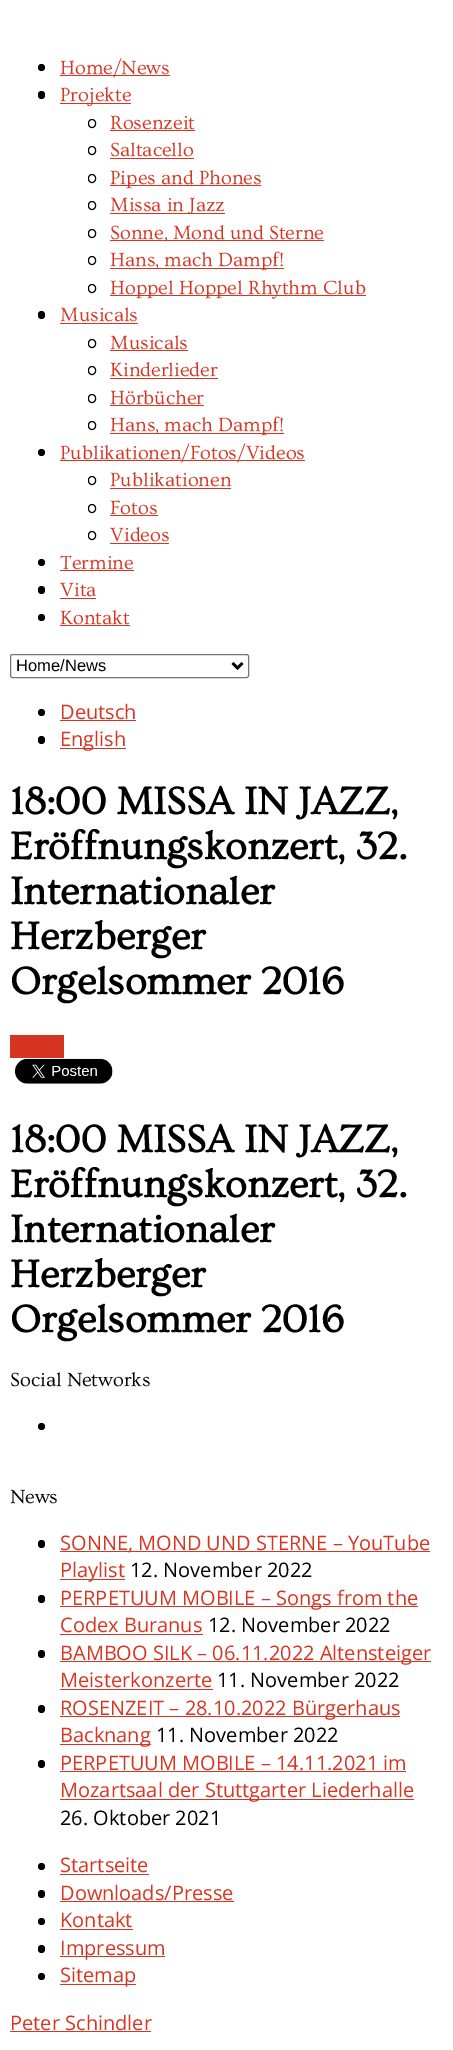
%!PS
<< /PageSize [453 2050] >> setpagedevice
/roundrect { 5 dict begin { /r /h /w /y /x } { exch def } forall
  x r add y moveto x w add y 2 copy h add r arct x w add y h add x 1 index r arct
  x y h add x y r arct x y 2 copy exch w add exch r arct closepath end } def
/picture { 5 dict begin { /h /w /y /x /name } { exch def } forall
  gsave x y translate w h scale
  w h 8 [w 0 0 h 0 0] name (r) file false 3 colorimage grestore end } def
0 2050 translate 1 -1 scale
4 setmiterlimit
1 setgray
0 0 453 2050 rectfill
0 setgray
newpath 41.5 67.5 3.5 0 360 arc closepath fill
0.839 0.208 0.133 setrgbcolor
60 75 110 1 rectfill
/Ovo-Regular [20 0 0 -20 0 0] selectfont
60 74 moveto (Home/News) show
0 setgray
38 91 7 8 3.5 roundrect fill
0.839 0.208 0.133 setrgbcolor
60 103 71 1 rectfill
60 101 moveto (Projekte) show
0 setgray
88.5 119.5 7 8 3.5 roundrect stroke
0.839 0.208 0.133 setrgbcolor
110 129 moveto (Rosenzeit) show
110 130 85 1 rectfill
0 setgray
88.5 146.5 7 8 3.5 roundrect stroke
0.839 0.208 0.133 setrgbcolor
110 156 moveto (Saltacello) show
110 158 84 1 rectfill
0 setgray
88.5 174.5 7 8 3.5 roundrect stroke
0.839 0.208 0.133 setrgbcolor
110 185 151 1 rectfill
110 184 moveto (Pipes and Phones) show
0 setgray
88.5 201.5 7 8 3.5 roundrect stroke
0.839 0.208 0.133 setrgbcolor
110 213 115 1 rectfill
110 211 moveto (Missa in Jazz) show
0 setgray
88.5 229.5 7 8 3.5 roundrect stroke
0.839 0.208 0.133 setrgbcolor
110 240 214 1 rectfill
110 239 moveto (Sonne, Mond und Sterne) show
0 setgray
88.5 256.5 7 8 3.5 roundrect stroke
0.839 0.208 0.133 setrgbcolor
110 268 174 1 rectfill
110 266 moveto (Hans, mach Dampf!) show
0 setgray
88.5 284.5 7 8 3.5 roundrect stroke
0.839 0.208 0.133 setrgbcolor
110 295 256 1 rectfill
110 294 moveto (Hoppel Hoppel Rhythm Club) show
0 setgray
38 311 7 8 3.5 roundrect fill
0.839 0.208 0.133 setrgbcolor
60 321 moveto (Musicals) show
60 323 78 1 rectfill
0 setgray
88.5 339.5 7 8 3.5 roundrect stroke
0.839 0.208 0.133 setrgbcolor
110 349 moveto (Musicals) show
110 350 78 1 rectfill
0 setgray
88.5 366.5 7 8 3.5 roundrect stroke
0.839 0.208 0.133 setrgbcolor
110 376 moveto (Kinderlieder) show
110 378 108 1 rectfill
0 setgray
88.5 394.5 7 8 3.5 roundrect stroke
0.839 0.208 0.133 setrgbcolor
110 404 moveto (Hörbücher) show
110 405 94 1 rectfill
0 setgray
88.5 421.5 7 8 3.5 roundrect stroke
0.839 0.208 0.133 setrgbcolor
110 433 174 1 rectfill
110 431 moveto (Hans, mach Dampf!) show
0 setgray
newpath 41.5 452.5 3.5 0 360 arc closepath fill
0.839 0.208 0.133 setrgbcolor
60 460 245 1 rectfill
60 459 moveto (Publikationen/Fotos/Videos) show
0 setgray
88.5 476.5 7 8 3.5 roundrect stroke
0.839 0.208 0.133 setrgbcolor
110 486 moveto (Publikationen) show
110 488 121 1 rectfill
0 setgray
88.5 504.5 7 8 3.5 roundrect stroke
0.839 0.208 0.133 setrgbcolor
110 514 moveto (Fotos) show
110 515 48 1 rectfill
0 setgray
88.5 531.5 7 8 3.5 roundrect stroke
0.839 0.208 0.133 setrgbcolor
110 541 moveto (Videos) show
110 543 59 1 rectfill
0 setgray
newpath 41.5 562.5 3.5 0 360 arc closepath fill
0.839 0.208 0.133 setrgbcolor
60 569 moveto (Termine) show
60 570 74 1 rectfill
0 setgray
38 586 7 8 3.5 roundrect fill
0.839 0.208 0.133 setrgbcolor
60 596 moveto (Vita) show
60 598 36 1 rectfill
0 setgray
newpath 41.5 617.5 3.5 0 360 arc closepath fill
0.839 0.208 0.133 setrgbcolor
60 624 moveto (Kontakt) show
60 625 70 1 rectfill
0.463 setgray
10.5 654.5 238 23 2 roundrect stroke
0 setgray
2.5 setlinewidth
newpath 232.5 663 moveto 237.5 668 lineto 242.5 663 lineto stroke
/LiberationSans-Regular [16.5 0 0 -16.5 0 0] selectfont
16 671 moveto (Home/News) show
newpath 41.5 712.5 3.5 0 360 arc closepath fill
/OpenSans-Regular [20 0 0 -20 0 0] selectfont
0.839 0.208 0.133 setrgbcolor
60 719 moveto (Deutsch) show
60 720 76 1 rectfill
0 setgray
38 736 7 8 3.5 roundrect fill
0.839 0.208 0.133 setrgbcolor
60 748 66 1 rectfill
60 746 moveto (English) show
/Ovo-Bold [40 0 0 -40 0 0] selectfont
0 setgray
10 814 moveto (18:00 MISSA IN JAZZ,) show
10 859 moveto (Eröffnungskonzert, 32.) show
10 904 moveto (Internationaler) show
10 949 moveto (Herzberger) show
10 994 moveto (Orgelsommer 2016) show
0.839 0.208 0.133 setrgbcolor
10 1035 54 23 rectfill
(img1.rgb) 15 1058 98 26 picture
0 setgray
10 1152 moveto (18:00 MISSA IN JAZZ,) show
10 1197 moveto (Eröffnungskonzert, 32.) show
10 1242 moveto (Internationaler) show
10 1287 moveto (Herzberger) show
10 1332 moveto (Orgelsommer 2016) show
/Ovo-Regular [20 0 0 -20 0 0] selectfont
10 1386 moveto (Social Networks) show
newpath 41.5 1426.5 3.5 0 360 arc closepath fill
10 1503 moveto (News) show
38 1540 7 8 3.5 roundrect fill
0.839 0.208 0.133 setrgbcolor
60 1551 370 1 rectfill
/OpenSans-Regular [20 0 0 -20 0 0] selectfont
60 1550 moveto (SONNE, MOND UND STERNE – YouTube) show
60 1579 65 1 rectfill
60 1577 moveto (Playlist) show
0 setgray
130 1577 moveto (12. November 2022) show
38 1595 7 8 3.5 roundrect fill
0.839 0.208 0.133 setrgbcolor
60 1606 358 1 rectfill
60 1605 moveto (PERPETUUM MOBILE – Songs from the) show
60 1632 moveto (Codex Buranus) show
60 1634 143 1 rectfill
0 setgray
208 1632 moveto (12. November 2022) show
38 1650 7 8 3.5 roundrect fill
0.839 0.208 0.133 setrgbcolor
60 1661 371 1 rectfill
60 1660 moveto (BAMBOO SILK – 06.11.2022 Altensteiger) show
60 1687 moveto (Meisterkonzerte) show
60 1689 153 1 rectfill
0 setgray
217 1687 moveto (11. November 2022) show
38 1705 7 8 3.5 roundrect fill
0.839 0.208 0.133 setrgbcolor
60 1716 340 1 rectfill
60 1715 moveto (ROSENZEIT – 28.10.2022 Bürgerhaus) show
60 1744 91 1 rectfill
60 1742 moveto (Backnang) show
0 setgray
156 1742 moveto (11. November 2022) show
38 1760 7 8 3.5 roundrect fill
0.839 0.208 0.133 setrgbcolor
60 1770 moveto (PERPETUUM MOBILE – 14.11.2021 im) show
60 1771 346 1 rectfill
60 1799 354 1 rectfill
60 1797 moveto (Mozartsaal der Stuttgarter Liederhalle) show
0 setgray
60 1825 moveto (26. Oktober 2021) show
newpath 41.5 1866.5 3.5 0 360 arc closepath fill
0.839 0.208 0.133 setrgbcolor
60 1872 moveto (Startseite) show
60 1874 89 1 rectfill
0 setgray
38 1890 7 8 3.5 roundrect fill
0.839 0.208 0.133 setrgbcolor
60 1900 moveto (Downloads/Presse) show
60 1901 174 1 rectfill
0 setgray
newpath 41.5 1921.5 3.5 0 360 arc closepath fill
0.839 0.208 0.133 setrgbcolor
60 1927 moveto (Kontakt) show
60 1929 73 1 rectfill
0 setgray
38 1945 7 8 3.5 roundrect fill
0.839 0.208 0.133 setrgbcolor
60 1956 105 1 rectfill
60 1955 moveto (Impressum) show
0 setgray
newpath 41.5 1976.5 3.5 0 360 arc closepath fill
0.839 0.208 0.133 setrgbcolor
60 1984 76 1 rectfill
60 1982 moveto (Sitemap) show
10 2030 moveto (Peter Schindler) show
10 2031 141 1 rectfill
showpage
